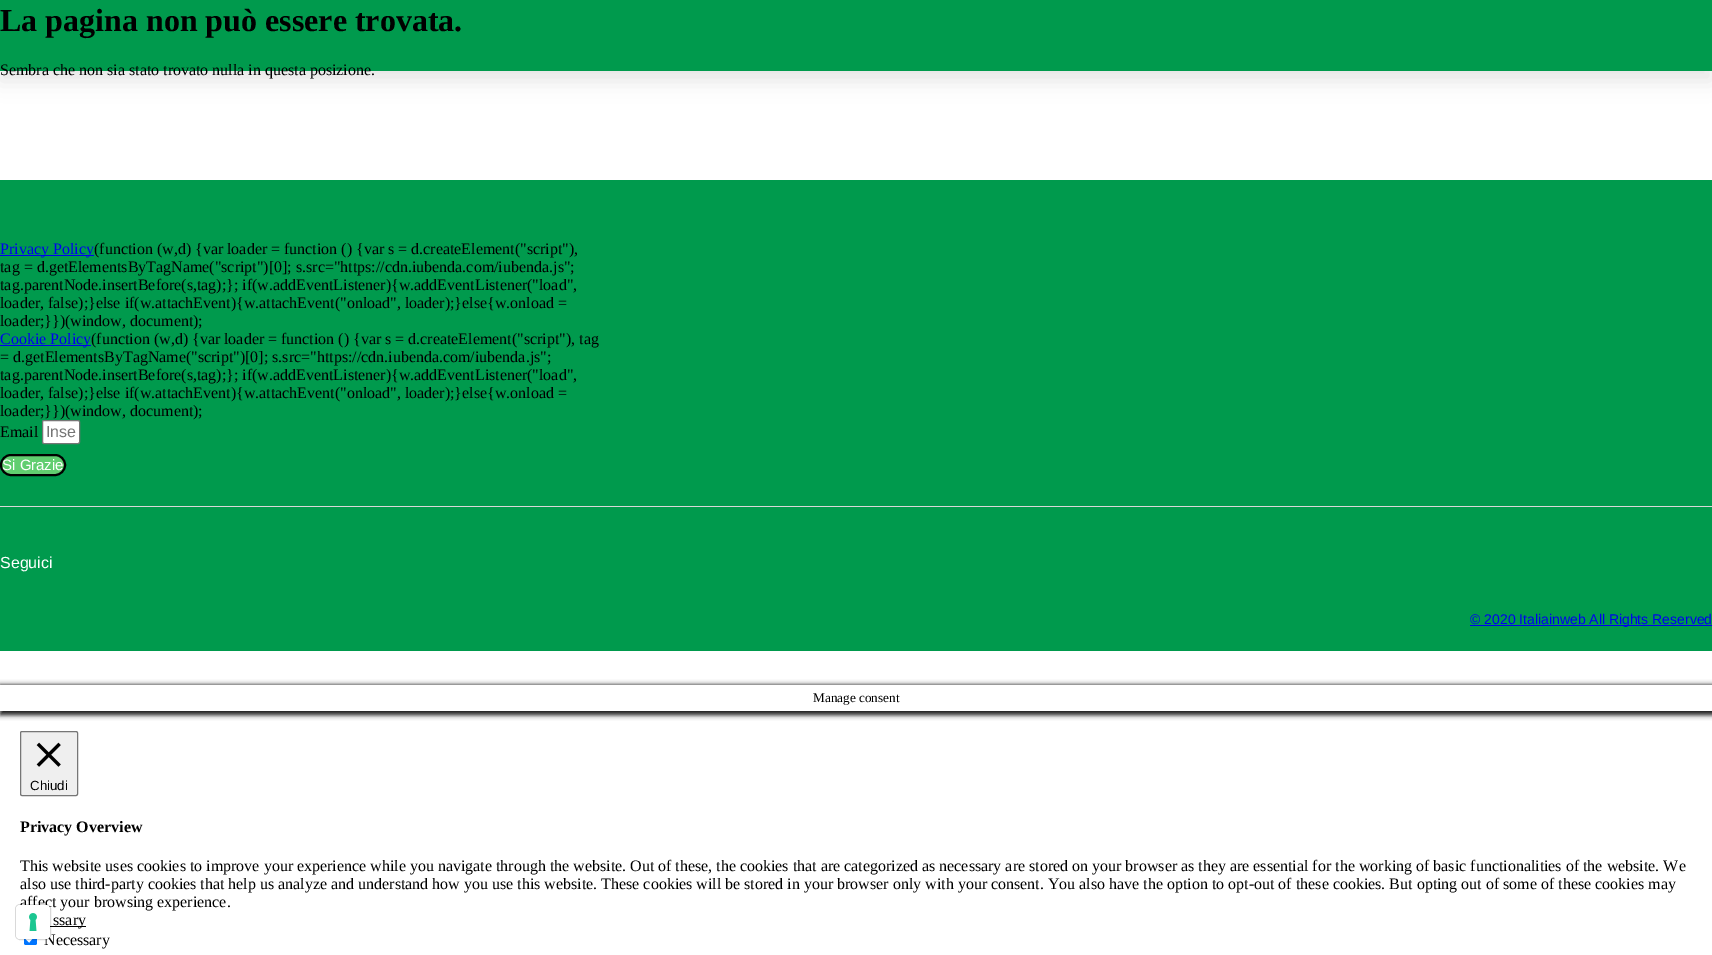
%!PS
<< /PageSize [1712 955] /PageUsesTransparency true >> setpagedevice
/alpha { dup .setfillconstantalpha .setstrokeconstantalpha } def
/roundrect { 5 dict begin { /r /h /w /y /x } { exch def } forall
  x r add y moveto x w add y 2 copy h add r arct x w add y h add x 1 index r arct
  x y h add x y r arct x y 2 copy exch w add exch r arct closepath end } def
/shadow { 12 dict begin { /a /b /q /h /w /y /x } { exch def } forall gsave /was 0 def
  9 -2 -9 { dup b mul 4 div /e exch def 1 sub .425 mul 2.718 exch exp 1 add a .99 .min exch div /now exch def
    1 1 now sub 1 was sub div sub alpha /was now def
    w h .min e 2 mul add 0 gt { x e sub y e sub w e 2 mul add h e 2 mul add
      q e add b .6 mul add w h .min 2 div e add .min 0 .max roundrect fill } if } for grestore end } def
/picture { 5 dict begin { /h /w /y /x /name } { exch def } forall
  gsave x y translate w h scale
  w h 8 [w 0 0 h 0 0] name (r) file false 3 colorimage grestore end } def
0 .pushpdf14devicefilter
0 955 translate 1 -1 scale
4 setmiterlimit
1 setgray
0 0 1712 955 rectfill
0 setgray
0 -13 1712 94 0 10 0.1 shadow
0 0.604 0.302 setrgbcolor
0 0 1712 71 rectfill
/LiberationSerif-Bold [32 0 0 -32 0 0] selectfont
0 setgray
0 31 moveto (La pagina non può essere trovata.) show
/LiberationSerif-Regular [16 0 0 -16 0 0] selectfont
0 75 moveto (Sembra che non sia stato trovato nulla in questa posizione.) show
0 0.604 0.302 setrgbcolor
0 180 1712 471 rectfill
0 0 0.933 setrgbcolor
0 255 94 1 rectfill
0 254 moveto (Privacy Policy) show
0 setgray
94 254 moveto (\(function \(w,d\) {var loader = function \(\) {var s = d.createElement\("script"\),) show
0 272 moveto (tag = d.getElementsByTagName\("script"\)[0]; s.src="https://cdn.iubenda.com/iubenda.js";) show
0 290 moveto (tag.parentNode.insertBefore\(s,tag\);}; if\(w.addEventListener\){w.addEventListener\("load",) show
0 308 moveto (loader, false\);}else if\(w.attachEvent\){w.attachEvent\("onload", loader\);}else{w.onload =) show
0 326 moveto (loader;}}\)\(window, document\);) show
0 0 0.933 setrgbcolor
0 345 91 1 rectfill
0 344 moveto (Cookie Policy) show
0 setgray
91 344 moveto (\(function \(w,d\) {var loader = function \(\) {var s = d.createElement\("script"\), tag) show
0 362 moveto (= d.getElementsByTagName\("script"\)[0]; s.src="https://cdn.iubenda.com/iubenda.js";) show
0 380 moveto (tag.parentNode.insertBefore\(s,tag\);}; if\(w.addEventListener\){w.addEventListener\("load",) show
0 398 moveto (loader, false\);}else if\(w.attachEvent\){w.attachEvent\("onload", loader\);}else{w.onload =) show
0 416 moveto (loader;}}\)\(window, document\);) show
0 437 moveto (Email) show
1 setgray
42.5 420.5 37 23 1.5 roundrect gsave fill grestore
0.463 setgray
stroke
/LiberationSans-Regular [16 0 0 -16 0 0] selectfont
0.459 setgray
46 437 moveto (Inse) show
0.38 0.808 0.439 setrgbcolor
1 455 64 20 10 roundrect gsave fill grestore
0 setgray
2 setlinewidth
stroke
/LiberationSans-Regular [15 0 0 -15 0 0] selectfont
1 setgray
2 470 moveto (Si Grazie) show
0.847 setgray
0 506 1712 1 rectfill
/LiberationSans-Regular [16 0 0 -16 0 0] selectfont
1 setgray
0 568 moveto (Seguici) show
0 0 0.933 setrgbcolor
1470 625 242 1 rectfill
/LiberationSans-Regular [14 0 0 -14 0 0] selectfont
1470 624 moveto (© 2020 Italiainweb All Rights Reserved) show
gsave
newpath 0 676 moveto 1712 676 lineto 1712 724 lineto 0 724 lineto closepath 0 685 moveto 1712 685 lineto 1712 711 lineto 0 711 lineto closepath eoclip newpath
0.086 setgray
0 685 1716 30 0 2.5 1 shadow
grestore
/LiberationSerif-Regular [13.25 0 0 -13.25 0 0] selectfont
0 setgray
813 702 moveto (Manage consent) show
0.937 setgray
20.5 731.5 57 64 1.5 roundrect gsave fill grestore
0.463 setgray
1 setlinewidth
stroke
(img1.rgb) 36 742 25 25 picture
/LiberationSans-Regular [13.25 0 0 -13.25 0 0] selectfont
0 setgray
30 790 moveto (Chiudi) show
/LiberationSerif-Bold [16 0 0 -16 0 0] selectfont
20 832 moveto (Privacy Overview) show
/LiberationSerif-Regular [16 0 0 -16 0 0] selectfont
20 871 moveto (This website uses cookies to improve your experience while you navigate through the website. Out of these, the cookies that are categorized as necessary are stored on your browser as they are essential for the working of basic functionalities of the website. We) show
20 889 moveto (also use third-party cookies that help us analyze and understand how you use this website. These cookies will be stored in your browser only with your consent. You also have the option to opt-out of these cookies. But opting out of some of these cookies may) show
20 907 moveto (affect your browsing experience.) show
50 926 36 1 rectfill
53 925 moveto (ssary) show
0 0.459 1 setrgbcolor
24 932 13 13 2 roundrect fill
1 setgray
2.1 setlinewidth
newpath 26.5 938.5 moveto 29 941 lineto 34.5 934.5 lineto stroke
0 setgray
44 945 moveto (Necessary) show
0.15 alpha
1 setlinewidth
15.5 904.5 35 35 4.5 roundrect stroke
1 alpha
1 setgray
16 905 34 34 4 roundrect fill
(img2.rgb) 29 913 8 18 picture
.poppdf14devicefilter showpage
